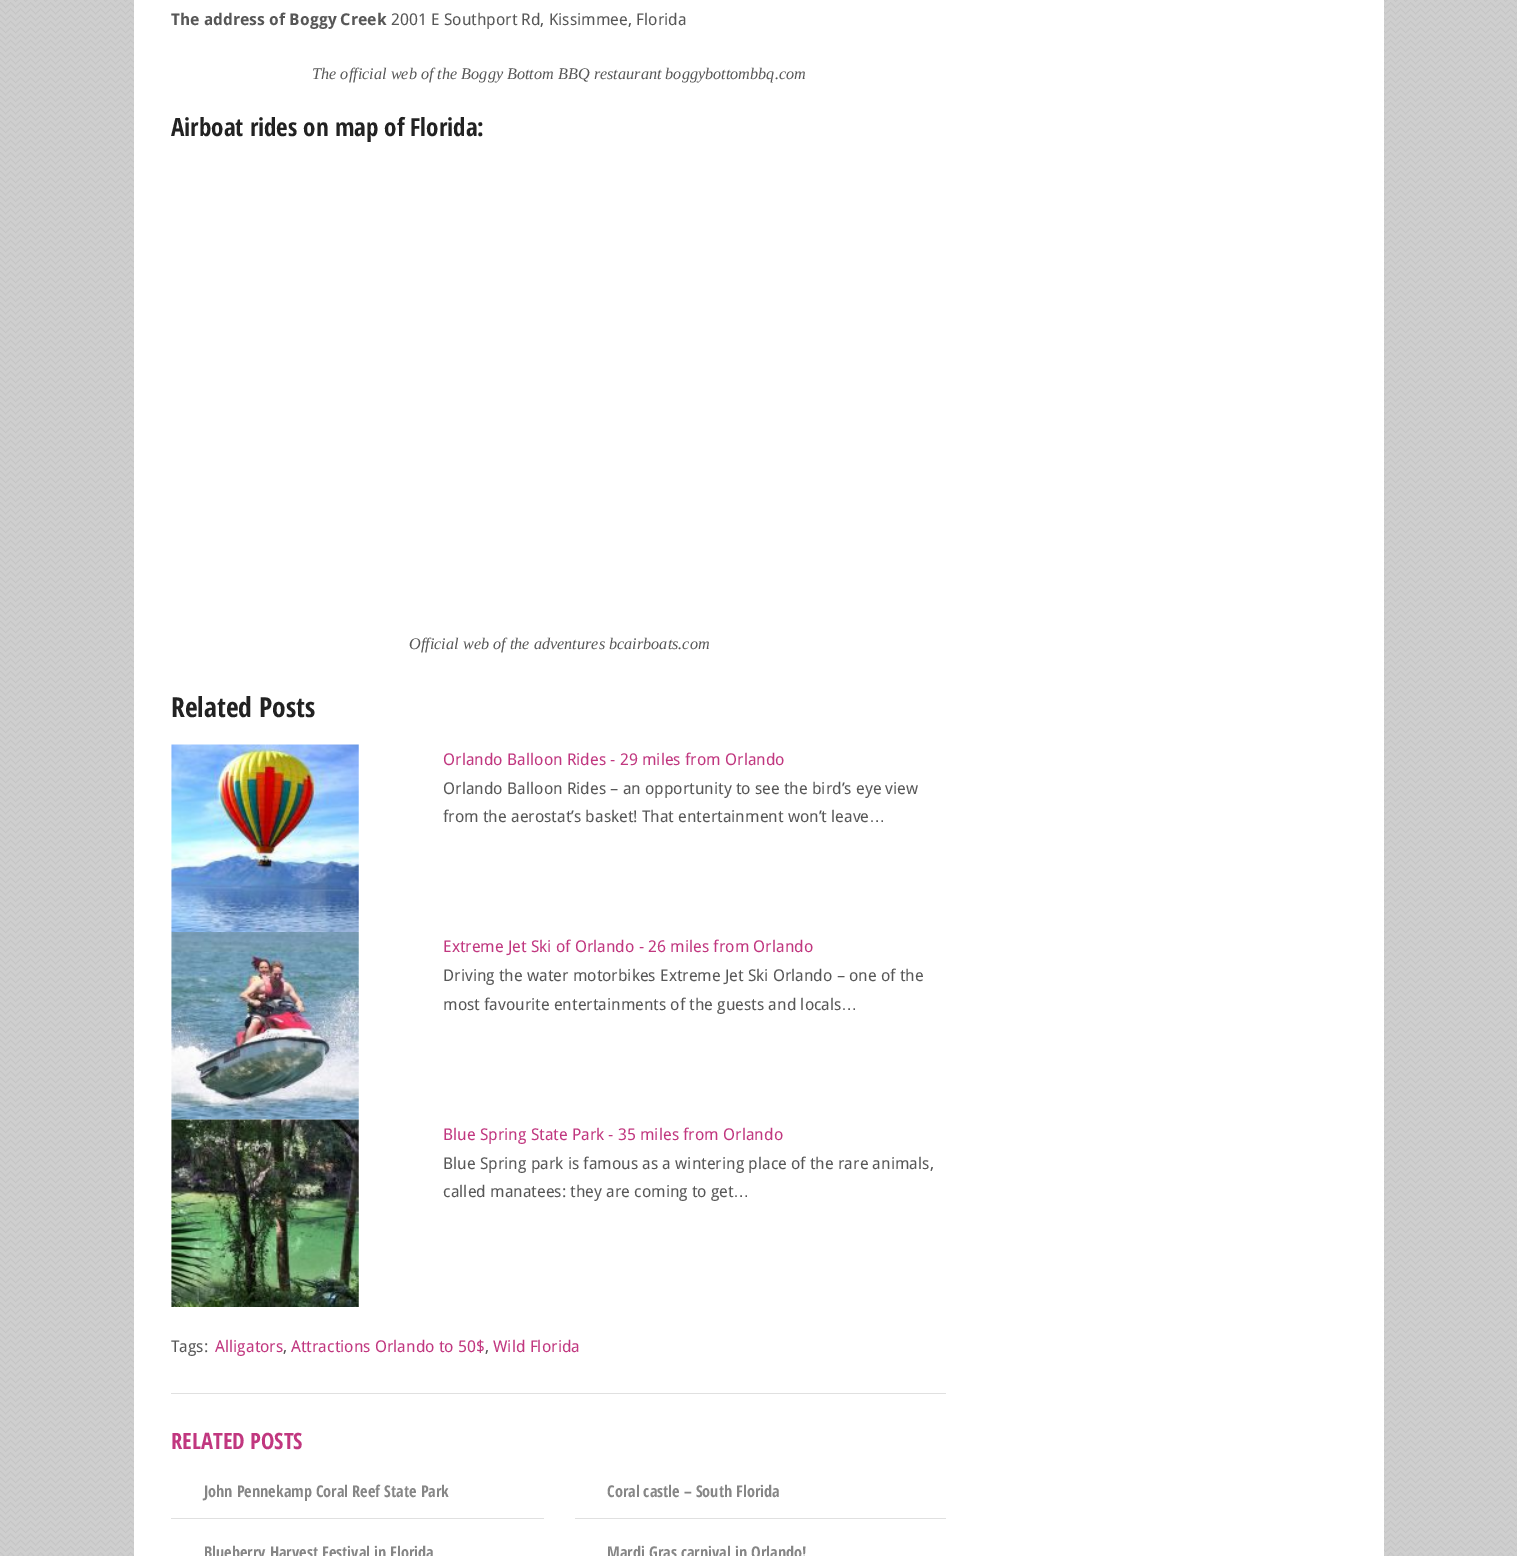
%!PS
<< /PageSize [1517 1556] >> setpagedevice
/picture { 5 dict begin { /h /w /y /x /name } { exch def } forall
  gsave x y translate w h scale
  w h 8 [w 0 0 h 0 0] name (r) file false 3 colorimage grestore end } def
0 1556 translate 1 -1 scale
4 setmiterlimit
0.812 setgray
0 0 1517 1556 rectfill
(img1.rgb) 0 0 1517 1556 picture
1 setgray
134 0 1250 1556 rectfill
/DroidSans-Bold [16.25 0 0 -16.25 0 0] selectfont
0.341 setgray
171 25 moveto (The address of Boggy Creek) show
/DroidSans-Regular [16.25 0 0 -16.25 0 0] selectfont
391 25 moveto (2001 E Southport Rd, Kissimmee, Florida) show
/LiberationSerif-Italic [16.25 0 0 -16.25 0 0] selectfont
312 79 moveto (The official web of the Boggy Bottom BBQ restaurant boggybottombbq.com) show
/OpenSansCondensed-Bold [25 0 0 -25 0 0] selectfont
0.133 setgray
171 136 moveto (Airboat rides on map of Florida:) show
/LiberationSerif-Italic [16.25 0 0 -16.25 0 0] selectfont
0.341 setgray
409 649 moveto (Official web of the adventures bcairboats.com) show
/OpenSansCondensed-Bold [27.5 0 0 -27.5 0 0] selectfont
0.133 setgray
171 717 moveto (Related Posts) show
(img2.rgb) 171 744 188 188 picture
/DroidSans-Regular [16.25 0 0 -16.25 0 0] selectfont
0.757 0.216 0.498 setrgbcolor
443 765 moveto (Orlando Balloon Rides - 29 miles from Orlando) show
0.341 setgray
443 794 moveto (Orlando Balloon Rides – an opportunity to see the bird’s eye view) show
443 822 moveto (from the aerostat’s basket! That entertainment won’t leave) show
/LiberationSans-Regular [16.25 0 0 -16.25 0 0] selectfont
869 822 moveto (…) show
(img3.rgb) 171 932 188 188 picture
/DroidSans-Regular [16.25 0 0 -16.25 0 0] selectfont
0.757 0.216 0.498 setrgbcolor
443 952 moveto (Extreme Jet Ski of Orlando - 26 miles from Orlando) show
0.341 setgray
443 981 moveto (Driving the water motorbikes Extreme Jet Ski Orlando – one of the) show
443 1010 moveto (most favourite entertainments of the guests and locals) show
/LiberationSans-Regular [16.25 0 0 -16.25 0 0] selectfont
841 1010 moveto (…) show
(img4.rgb) 171 1119 188 188 picture
/DroidSans-Regular [16.25 0 0 -16.25 0 0] selectfont
0.757 0.216 0.498 setrgbcolor
443 1140 moveto (Blue Spring State Park - 35 miles from Orlando) show
0.341 setgray
443 1169 moveto (Blue Spring park is famous as a wintering place of the rare animals,) show
443 1197 moveto (called manatees: they are coming to get) show
/LiberationSans-Regular [16.25 0 0 -16.25 0 0] selectfont
733 1197 moveto (…) show
/DroidSans-Regular [16.25 0 0 -16.25 0 0] selectfont
171 1352 moveto (Tags:) show
0.757 0.216 0.498 setrgbcolor
215 1352 moveto (Alligators) show
0.341 setgray
283 1352 moveto (,) show
0.757 0.216 0.498 setrgbcolor
291 1352 moveto (Attractions Orlando to 50$) show
0.341 setgray
485 1352 moveto (,) show
0.757 0.216 0.498 setrgbcolor
493 1352 moveto (Wild Florida) show
0.878 setgray
171 1393 775 1 rectfill
/OpenSansCondensed-Bold [22.5 0 0 -22.5 0 0] selectfont
0.757 0.216 0.498 setrgbcolor
171 1449 moveto (RELATED POSTS) show
0.878 setgray
171 1518 373 1 rectfill
/OpenSansCondensed-Bold [16.25 0 0 -16.25 0 0] selectfont
0.525 setgray
204 1497 moveto (John Pennekamp Coral Reef State Park) show
0.878 setgray
575 1518 371 1 rectfill
0.525 setgray
607 1497 moveto (Coral castle – South Florida) show
204 1558 moveto (Blueberry Harvest Festival in Florida) show
607 1558 moveto (Mardi Gras carnival in Orlando!) show
showpage
